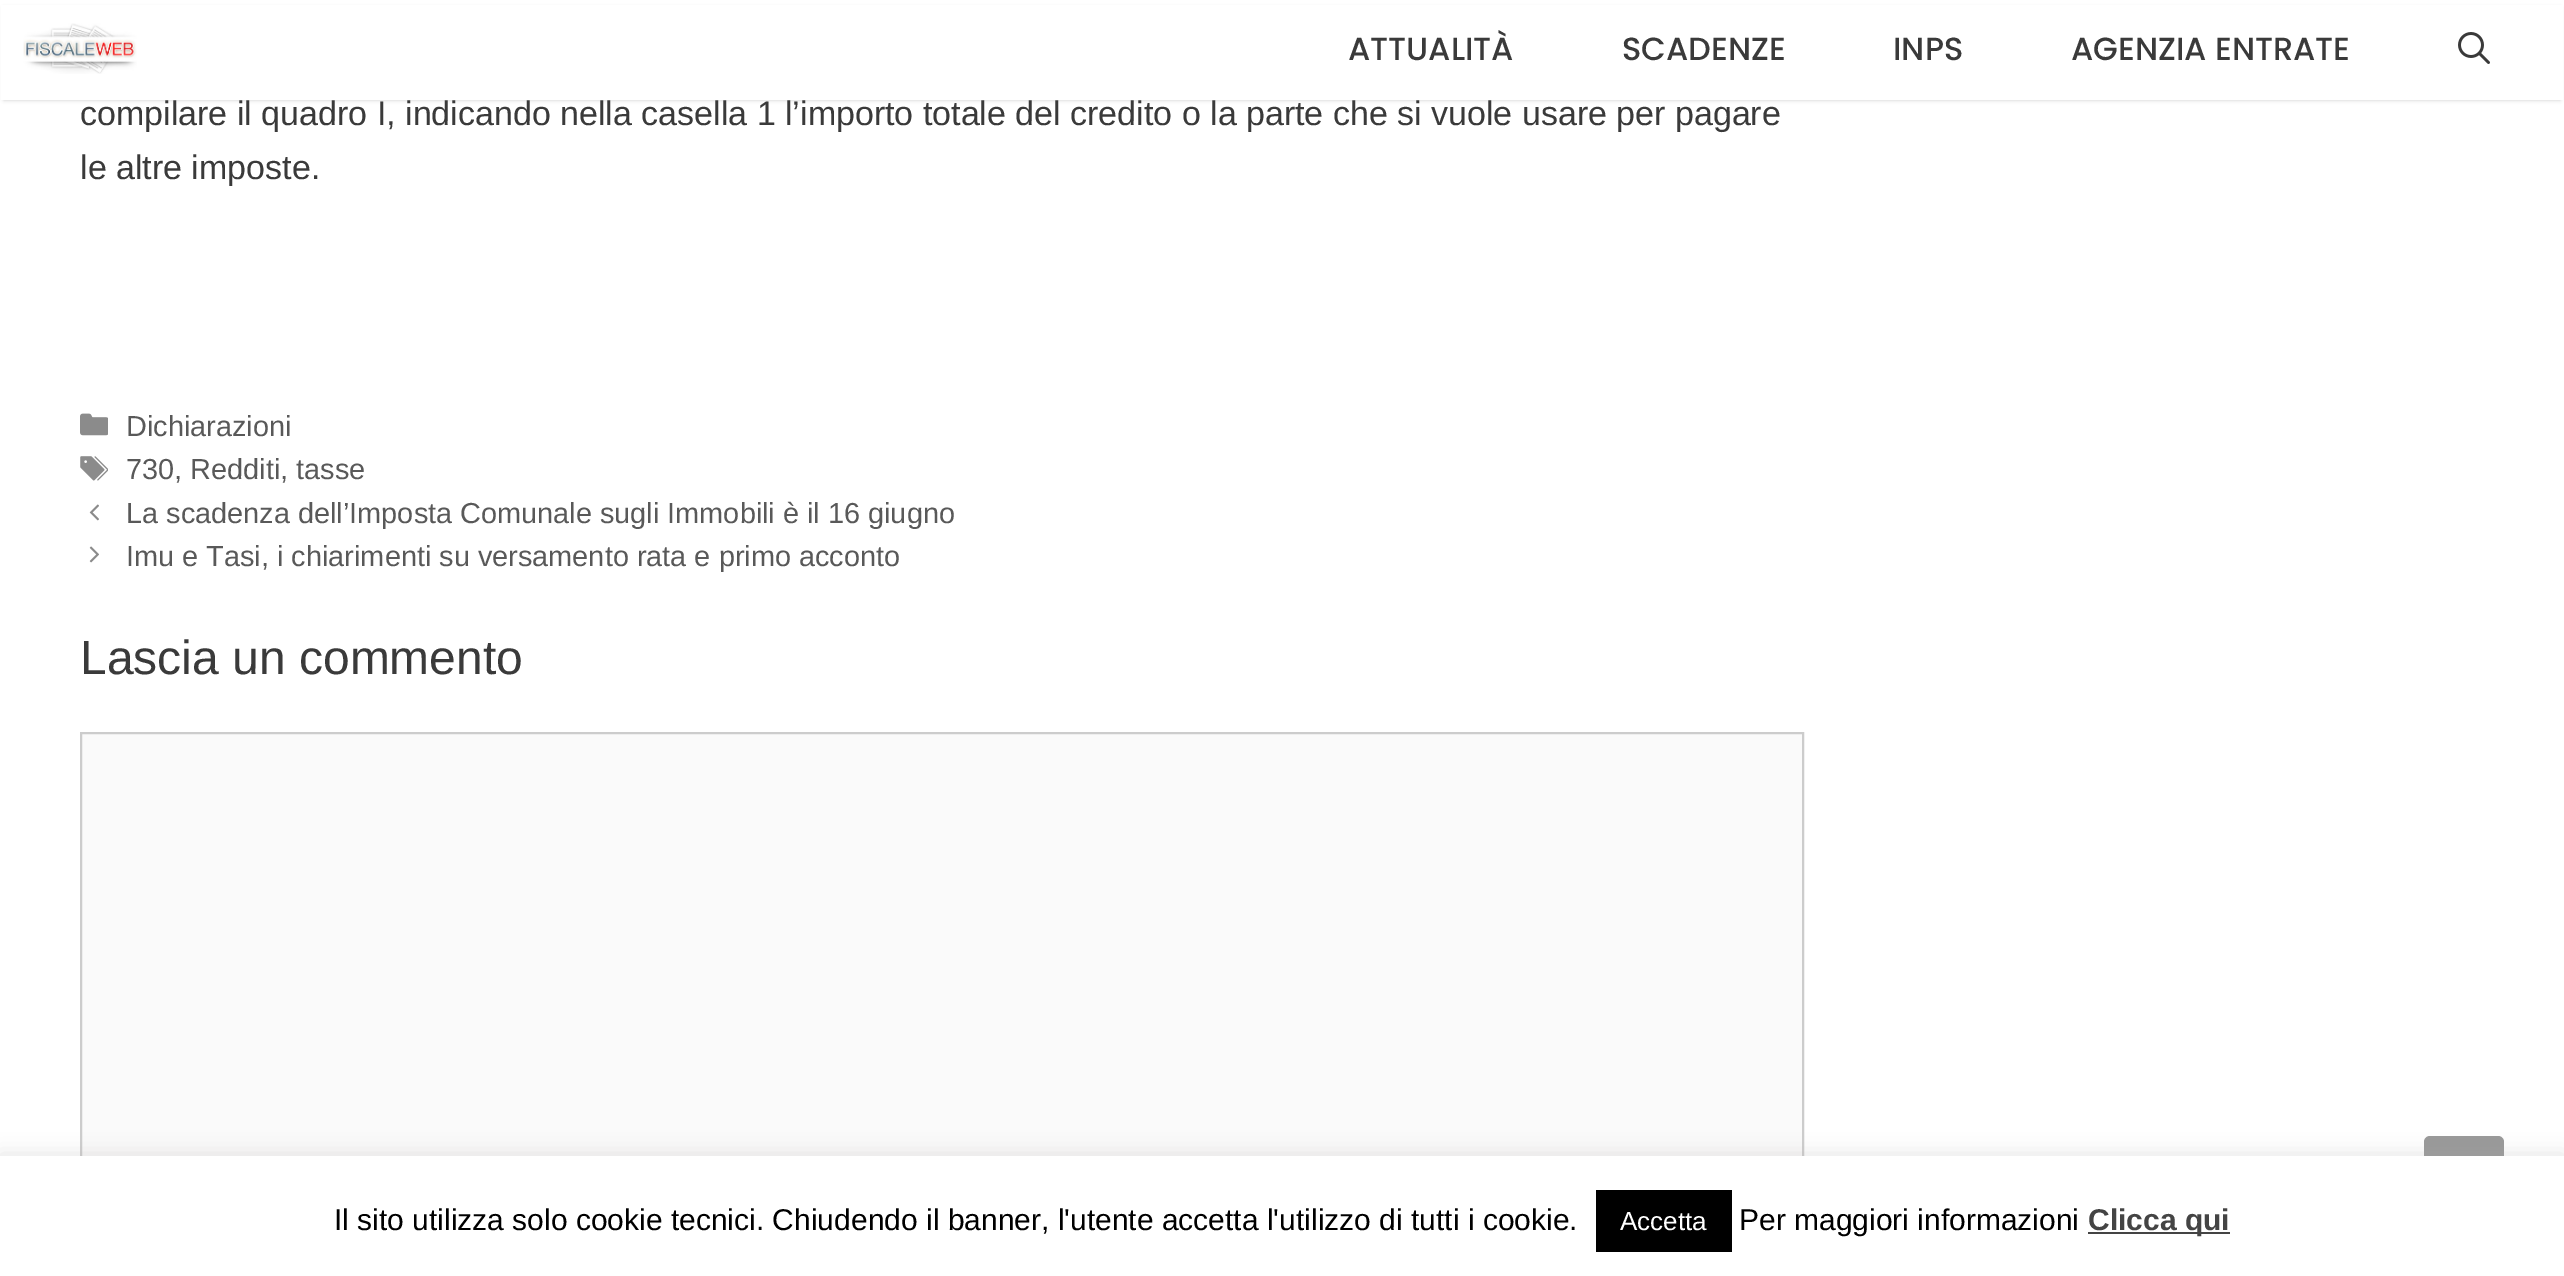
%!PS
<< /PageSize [2564 1276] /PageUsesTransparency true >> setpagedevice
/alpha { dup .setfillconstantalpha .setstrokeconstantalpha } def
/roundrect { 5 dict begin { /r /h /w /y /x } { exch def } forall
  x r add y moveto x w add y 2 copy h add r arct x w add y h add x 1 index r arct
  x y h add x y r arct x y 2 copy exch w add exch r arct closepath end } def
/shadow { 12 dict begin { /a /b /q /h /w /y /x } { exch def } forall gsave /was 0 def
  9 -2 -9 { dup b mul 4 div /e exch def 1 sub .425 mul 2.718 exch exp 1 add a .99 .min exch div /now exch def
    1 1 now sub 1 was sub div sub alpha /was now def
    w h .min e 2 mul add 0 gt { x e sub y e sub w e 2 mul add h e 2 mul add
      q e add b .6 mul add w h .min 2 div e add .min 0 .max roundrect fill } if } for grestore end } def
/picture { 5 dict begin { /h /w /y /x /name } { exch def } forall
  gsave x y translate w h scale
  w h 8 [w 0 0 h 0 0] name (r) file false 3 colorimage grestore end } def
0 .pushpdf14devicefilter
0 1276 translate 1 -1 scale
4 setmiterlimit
1 setgray
0 0 2564 1276 rectfill
0 setgray
4 8 2556 92 0 2 0.2 shadow
1 setgray
1 5 2562 95 rectfill
(img1.rgb) 23 23 114 51 picture
/Poppins-Medium [32 0 0 -32 0 0] selectfont
0.227 setgray
1348 60 moveto (ATTUALITÀ) show
1622 60 moveto (SCADENZE) show
1893 60 moveto (INPS) show
2071 60 moveto (AGENZIA ENTRATE) show
(img2.rgb) 2458 32 32 32 picture
/LiberationSans-Regular [34 0 0 -34 0 0] selectfont
80 125 moveto (compilare il quadro I, indicando nella casella 1 l’importo totale del credito o la parte che si vuole usare per pagare) show
80 179 moveto (le altre imposte.) show
(img3.rgb) 80 413 28 23 picture
/LiberationSans-Regular [28.9 0 0 -28.9 0 0] selectfont
0.349 setgray
126 436 moveto (Dichiarazioni) show
(img4.rgb) 80 456 28 25 picture
126 479 moveto (730, Redditi, tasse) show
(img5.rgb) 89 504 10 17 picture
126 523 moveto (La scadenza dell’Imposta Comunale sugli Immobili è il 16 giugno) show
(img6.rgb) 89 546 10 17 picture
126 566 moveto (Imu e Tasi, i chiarimenti su versamento rata e primo acconto) show
/LiberationSans-Regular [48 0 0 -48 0 0] selectfont
0.227 setgray
80 674 moveto (Lascia un commento) show
0.98 setgray
82 734 1720 422 rectfill
0.8 setgray
2 setlinewidth
81 733 1722 450 rectstroke
0.6 setgray
2424 1136 80 80 6 roundrect fill
0.675 0.671 0.671 setrgbcolor
0 1154 2564 120 0 10 0.3 shadow
1 setgray
0 1156 2564 120 rectfill
/LiberationSans-Regular [30 0 0 -30 0 0] selectfont
0 setgray
334 1230 moveto (Il sito utilizza solo cookie tecnici. Chiudendo il banner, l'utente accetta l'utilizzo di tutti i cookie.) show
1596 1190 136 62 rectfill
/LiberationSans-Regular [26 0 0 -26 0 0] selectfont
1 setgray
1620 1230 moveto (Accetta) show
/LiberationSans-Regular [30 0 0 -30 0 0] selectfont
0 setgray
1739 1230 moveto (Per maggiori informazioni) show
0.267 setgray
2088 1232 142 2 rectfill
/LiberationSans-Bold [30 0 0 -30 0 0] selectfont
2088 1230 moveto (Clicca qui) show
.poppdf14devicefilter showpage
